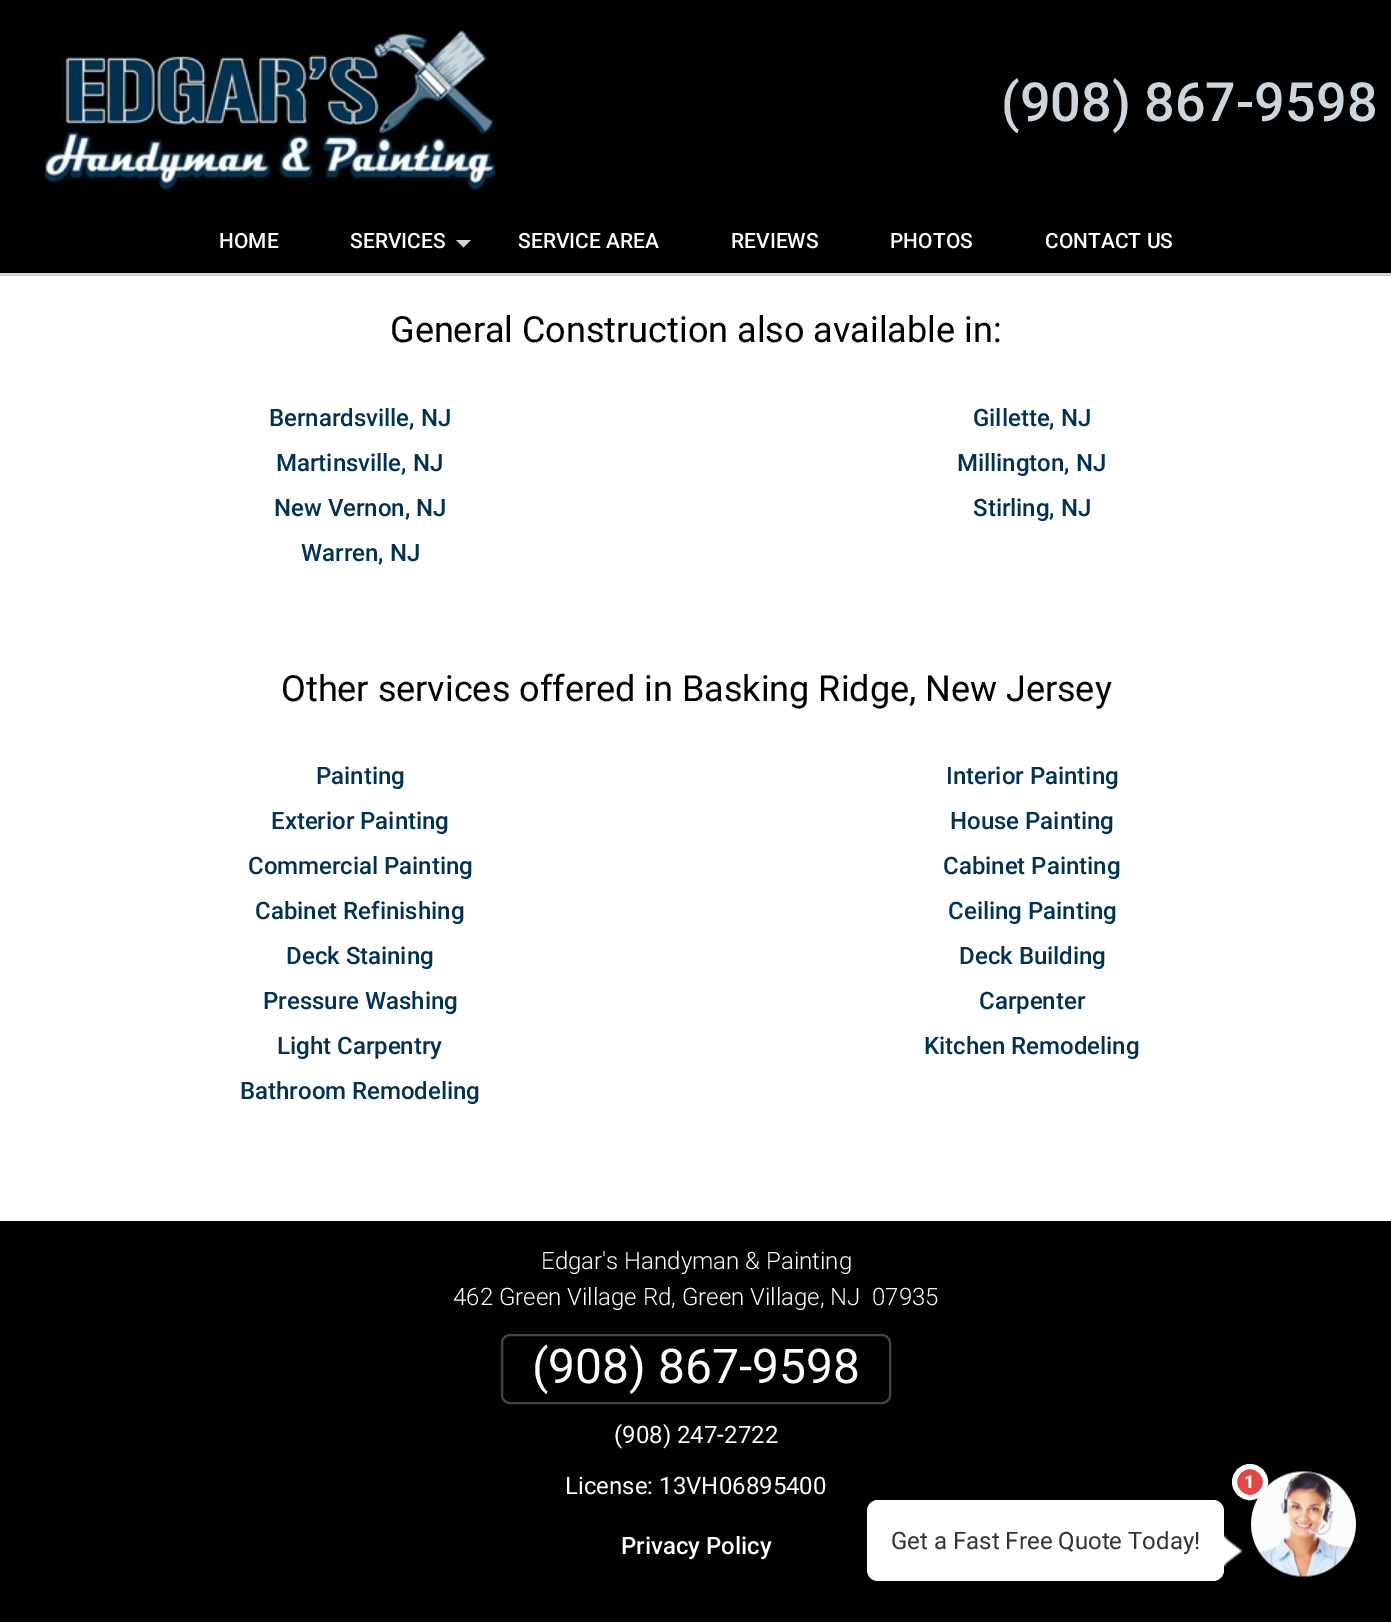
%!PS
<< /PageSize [1391 1622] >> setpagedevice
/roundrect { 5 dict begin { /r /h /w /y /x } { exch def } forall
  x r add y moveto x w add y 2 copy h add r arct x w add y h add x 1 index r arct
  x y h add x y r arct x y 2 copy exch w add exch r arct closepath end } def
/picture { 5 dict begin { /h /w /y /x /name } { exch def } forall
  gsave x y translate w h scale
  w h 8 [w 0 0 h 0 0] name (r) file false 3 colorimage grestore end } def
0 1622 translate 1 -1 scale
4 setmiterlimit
1 setgray
0 0 1391 1622 rectfill
0.827 setgray
0 273 1391 3 rectfill
0 setgray
0 0 1391 273 rectfill
(img1.rgb) 45 30 450 164 picture
/Roboto-Medium [54 0 0 -54 0 0] selectfont
0.804 0.839 0.867 setrgbcolor
1001 121 moveto (\(908\) 867-9598) show
/Roboto-Medium [21 0 0 -21 0 0] selectfont
1 setgray
219 248 moveto (HOME) show
350 248 moveto (SERVICES) show
0.824 0.827 0.831 setrgbcolor
newpath 456 240 moveto 471 240 lineto 463.5 247.5 lineto closepath fill
1 setgray
518 248 moveto (SERVICE AREA) show
731 248 moveto (REVIEWS) show
890 248 moveto (PHOTOS) show
1045 248 moveto (CONTACT US) show
/Roboto-Regular [36 0 0 -36 0 0] selectfont
0 setgray
390 342 moveto (General Construction also available in:) show
/Roboto-Medium [24 0 0 -24 0 0] selectfont
0.004 0.196 0.322 setrgbcolor
269 426 moveto (Bernardsville, NJ) show
973 426 moveto (Gillette, NJ) show
276 471 moveto (Martinsville, NJ) show
957 471 moveto (Millington, NJ) show
274 516 moveto (New Vernon, NJ) show
973 516 moveto (Stirling, NJ) show
301 561 moveto (Warren, NJ) show
/Roboto-Regular [36 0 0 -36 0 0] selectfont
0 setgray
281 701 moveto (Other services offered in Basking Ridge, New Jersey) show
/Roboto-Medium [24 0 0 -24 0 0] selectfont
0.004 0.196 0.322 setrgbcolor
316 784 moveto (Painting) show
946 784 moveto (Interior Painting) show
271 829 moveto (Exterior Painting) show
950 829 moveto (House Painting) show
248 874 moveto (Commercial Painting) show
943 874 moveto (Cabinet Painting) show
255 919 moveto (Cabinet Refinishing) show
948 919 moveto (Ceiling Painting) show
286 964 moveto (Deck Staining) show
959 964 moveto (Deck Building) show
263 1009 moveto (Pressure Washing) show
979 1009 moveto (Carpenter) show
277 1054 moveto (Light Carpentry) show
924 1054 moveto (Kitchen Remodeling) show
240 1099 moveto (Bathroom Remodeling) show
0 setgray
0 1221 1391 401 rectfill
/Roboto-Light [24 0 0 -24 0 0] selectfont
1 setgray
541 1269 moveto (Edgar's Handyman & Painting) show
453 1305 moveto (462 Green Village Rd, Green Village, NJ  07935) show
0.267 setgray
2 setlinewidth
502 1335 388 68 8 roundrect stroke
/Roboto-Regular [48 0 0 -48 0 0] selectfont
1 setgray
532 1383 moveto (\(908\) 867-9598) show
/Roboto-Regular [24 0 0 -24 0 0] selectfont
614 1443 moveto (\(908\) 247-2722) show
565 1494 moveto (License: 13VH06895400) show
/Roboto-Medium [24 0 0 -24 0 0] selectfont
621 1554 moveto (Privacy Policy) show
(img2.rgb) 1251 1471 105 106 picture
0.886 0.282 0.282 setrgbcolor
newpath 1250 1482 15.5 0 360 arc closepath gsave fill grestore
1 setgray
5 setlinewidth
stroke
/Roboto-Black [18 0 0 -18 0 0] selectfont
1244 1488 moveto (1) show
867 1500 357 81 11 roundrect fill
/Roboto-Regular [24 0 0 -24 0 0] selectfont
0.2 setgray
891 1549 moveto (Get a Fast Free Quote Today!) show
(img3.rgb) 1224 1535 19 32 picture
showpage
